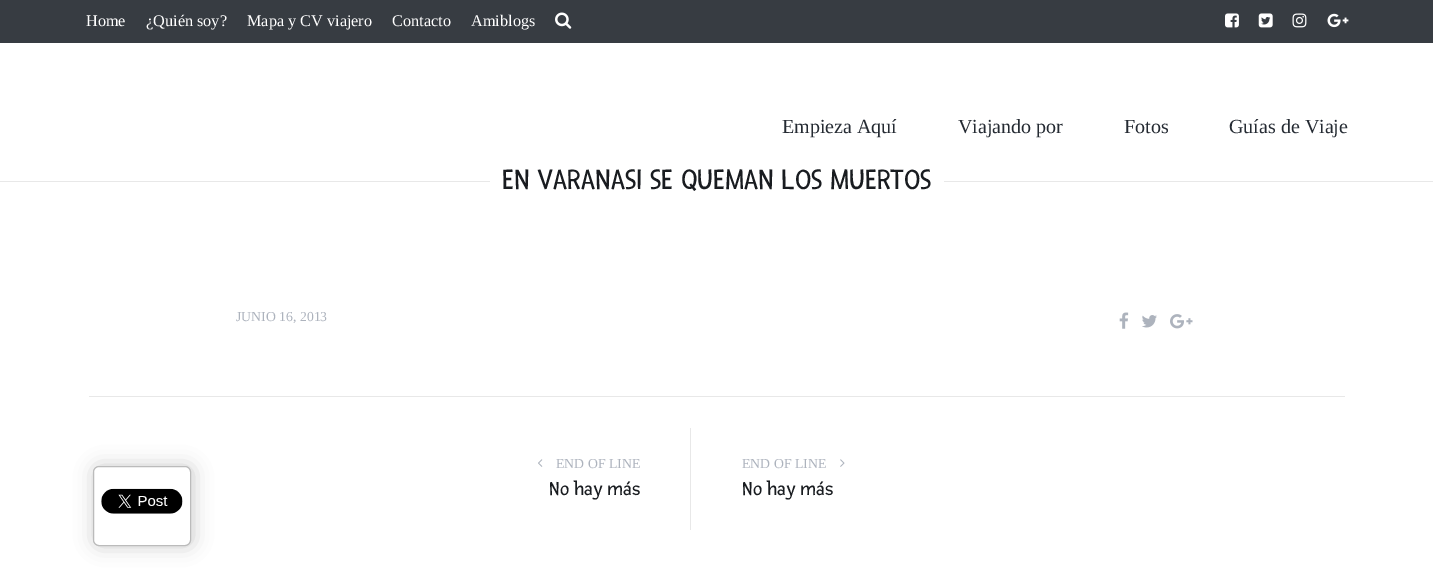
%!PS
<< /PageSize [1433 586] /PageUsesTransparency true >> setpagedevice
/alpha { dup .setfillconstantalpha .setstrokeconstantalpha } def
/roundrect { 5 dict begin { /r /h /w /y /x } { exch def } forall
  x r add y moveto x w add y 2 copy h add r arct x w add y h add x 1 index r arct
  x y h add x y r arct x y 2 copy exch w add exch r arct closepath end } def
/shadow { 12 dict begin { /a /b /q /h /w /y /x } { exch def } forall gsave /was 0 def
  9 -2 -9 { dup b mul 4 div /e exch def 1 sub .425 mul 2.718 exch exp 1 add a .99 .min exch div /now exch def
    1 1 now sub 1 was sub div sub alpha /was now def
    w h .min e 2 mul add 0 gt { x e sub y e sub w e 2 mul add h e 2 mul add
      q e add b .6 mul add w h .min 2 div e add .min 0 .max roundrect fill } if } for grestore end } def
/picture { 5 dict begin { /h /w /y /x /name } { exch def } forall
  gsave x y translate w h scale
  w h 8 [w 0 0 h 0 0] name (r) file false 3 colorimage grestore end } def
0 .pushpdf14devicefilter
0 586 translate 1 -1 scale
4 setmiterlimit
1 setgray
0 0 1433 586 rectfill
0.216 0.235 0.259 setrgbcolor
0 0 1433 43 rectfill
/LiberationSerif-Regular [16.25 0 0 -16.25 0 0] selectfont
1 setgray
86 26 moveto (Home) show
146 26 moveto (¿Quién soy?) show
247 26 moveto (Mapa y CV viajero) show
392 26 moveto (Contacto) show
471 26 moveto (Amiblogs) show
(img1.rgb) 555 12 17 17 picture
(img2.rgb) 1225 13 14 15 picture
(img3.rgb) 1258 13 15 15 picture
(img4.rgb) 1292 13 15 15 picture
(img5.rgb) 1327 13 22 15 picture
/LiberationSerif-Regular [20 0 0 -20 0 0] selectfont
0.145 0.169 0.2 setrgbcolor
782 133 moveto (Empieza Aquí) show
958 133 moveto (Viajando por) show
1124 133 moveto (Fotos) show
1229 133 moveto (Guías de Viaje) show
gsave
newpath 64 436 moveto 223 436 lineto 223 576 lineto 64 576 lineto closepath 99 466 moveto 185 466 lineto 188.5 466 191 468.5 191 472 curveto 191 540 lineto 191 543.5 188.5 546 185 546 curveto 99 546 lineto 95.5 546 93 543.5 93 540 curveto 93 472 lineto 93 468.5 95.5 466 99 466 curveto closepath eoclip newpath
0 setgray
94 466 99 80 6 9.5 0.2 shadow
grestore
0.733 setgray
93.5 466.5 97 79 5.5 roundrect stroke
(img6.rgb) 101 488 82 26 picture
0.91 setgray
0 181 1433 1 rectfill
1 setgray
490 181 454 1 rectfill
/Fresca-Regular [30 0 0 -30 0 0] selectfont
0.098 0.11 0.125 setrgbcolor
502 189 moveto (EN VARANASI SE QUEMAN LOS MUERTOS) show
/LiberationSerif-Regular [13.75 0 0 -13.75 0 0] selectfont
0.678 0.702 0.741 setrgbcolor
236 321 moveto (JUNIO 16, 2013) show
(img7.rgb) 1119 312 10 17 picture
(img8.rgb) 1142 315 15 13 picture
(img9.rgb) 1170 314 23 15 picture
0.91 setgray
89 396 1256 1 rectfill
690 428 1 102 rectfill
(img10.rgb) 538 459 5 8 picture
0.678 0.702 0.741 setrgbcolor
556 468 moveto (END OF LINE) show
/Fresca-Regular [20 0 0 -20 0 0] selectfont
0.098 0.11 0.125 setrgbcolor
549 495 moveto (No hay más) show
/LiberationSerif-Regular [13.75 0 0 -13.75 0 0] selectfont
0.678 0.702 0.741 setrgbcolor
742 468 moveto (END OF LINE) show
(img11.rgb) 840 459 5 8 picture
/Fresca-Regular [20 0 0 -20 0 0] selectfont
0.098 0.11 0.125 setrgbcolor
742 495 moveto (No hay más) show
.poppdf14devicefilter showpage
